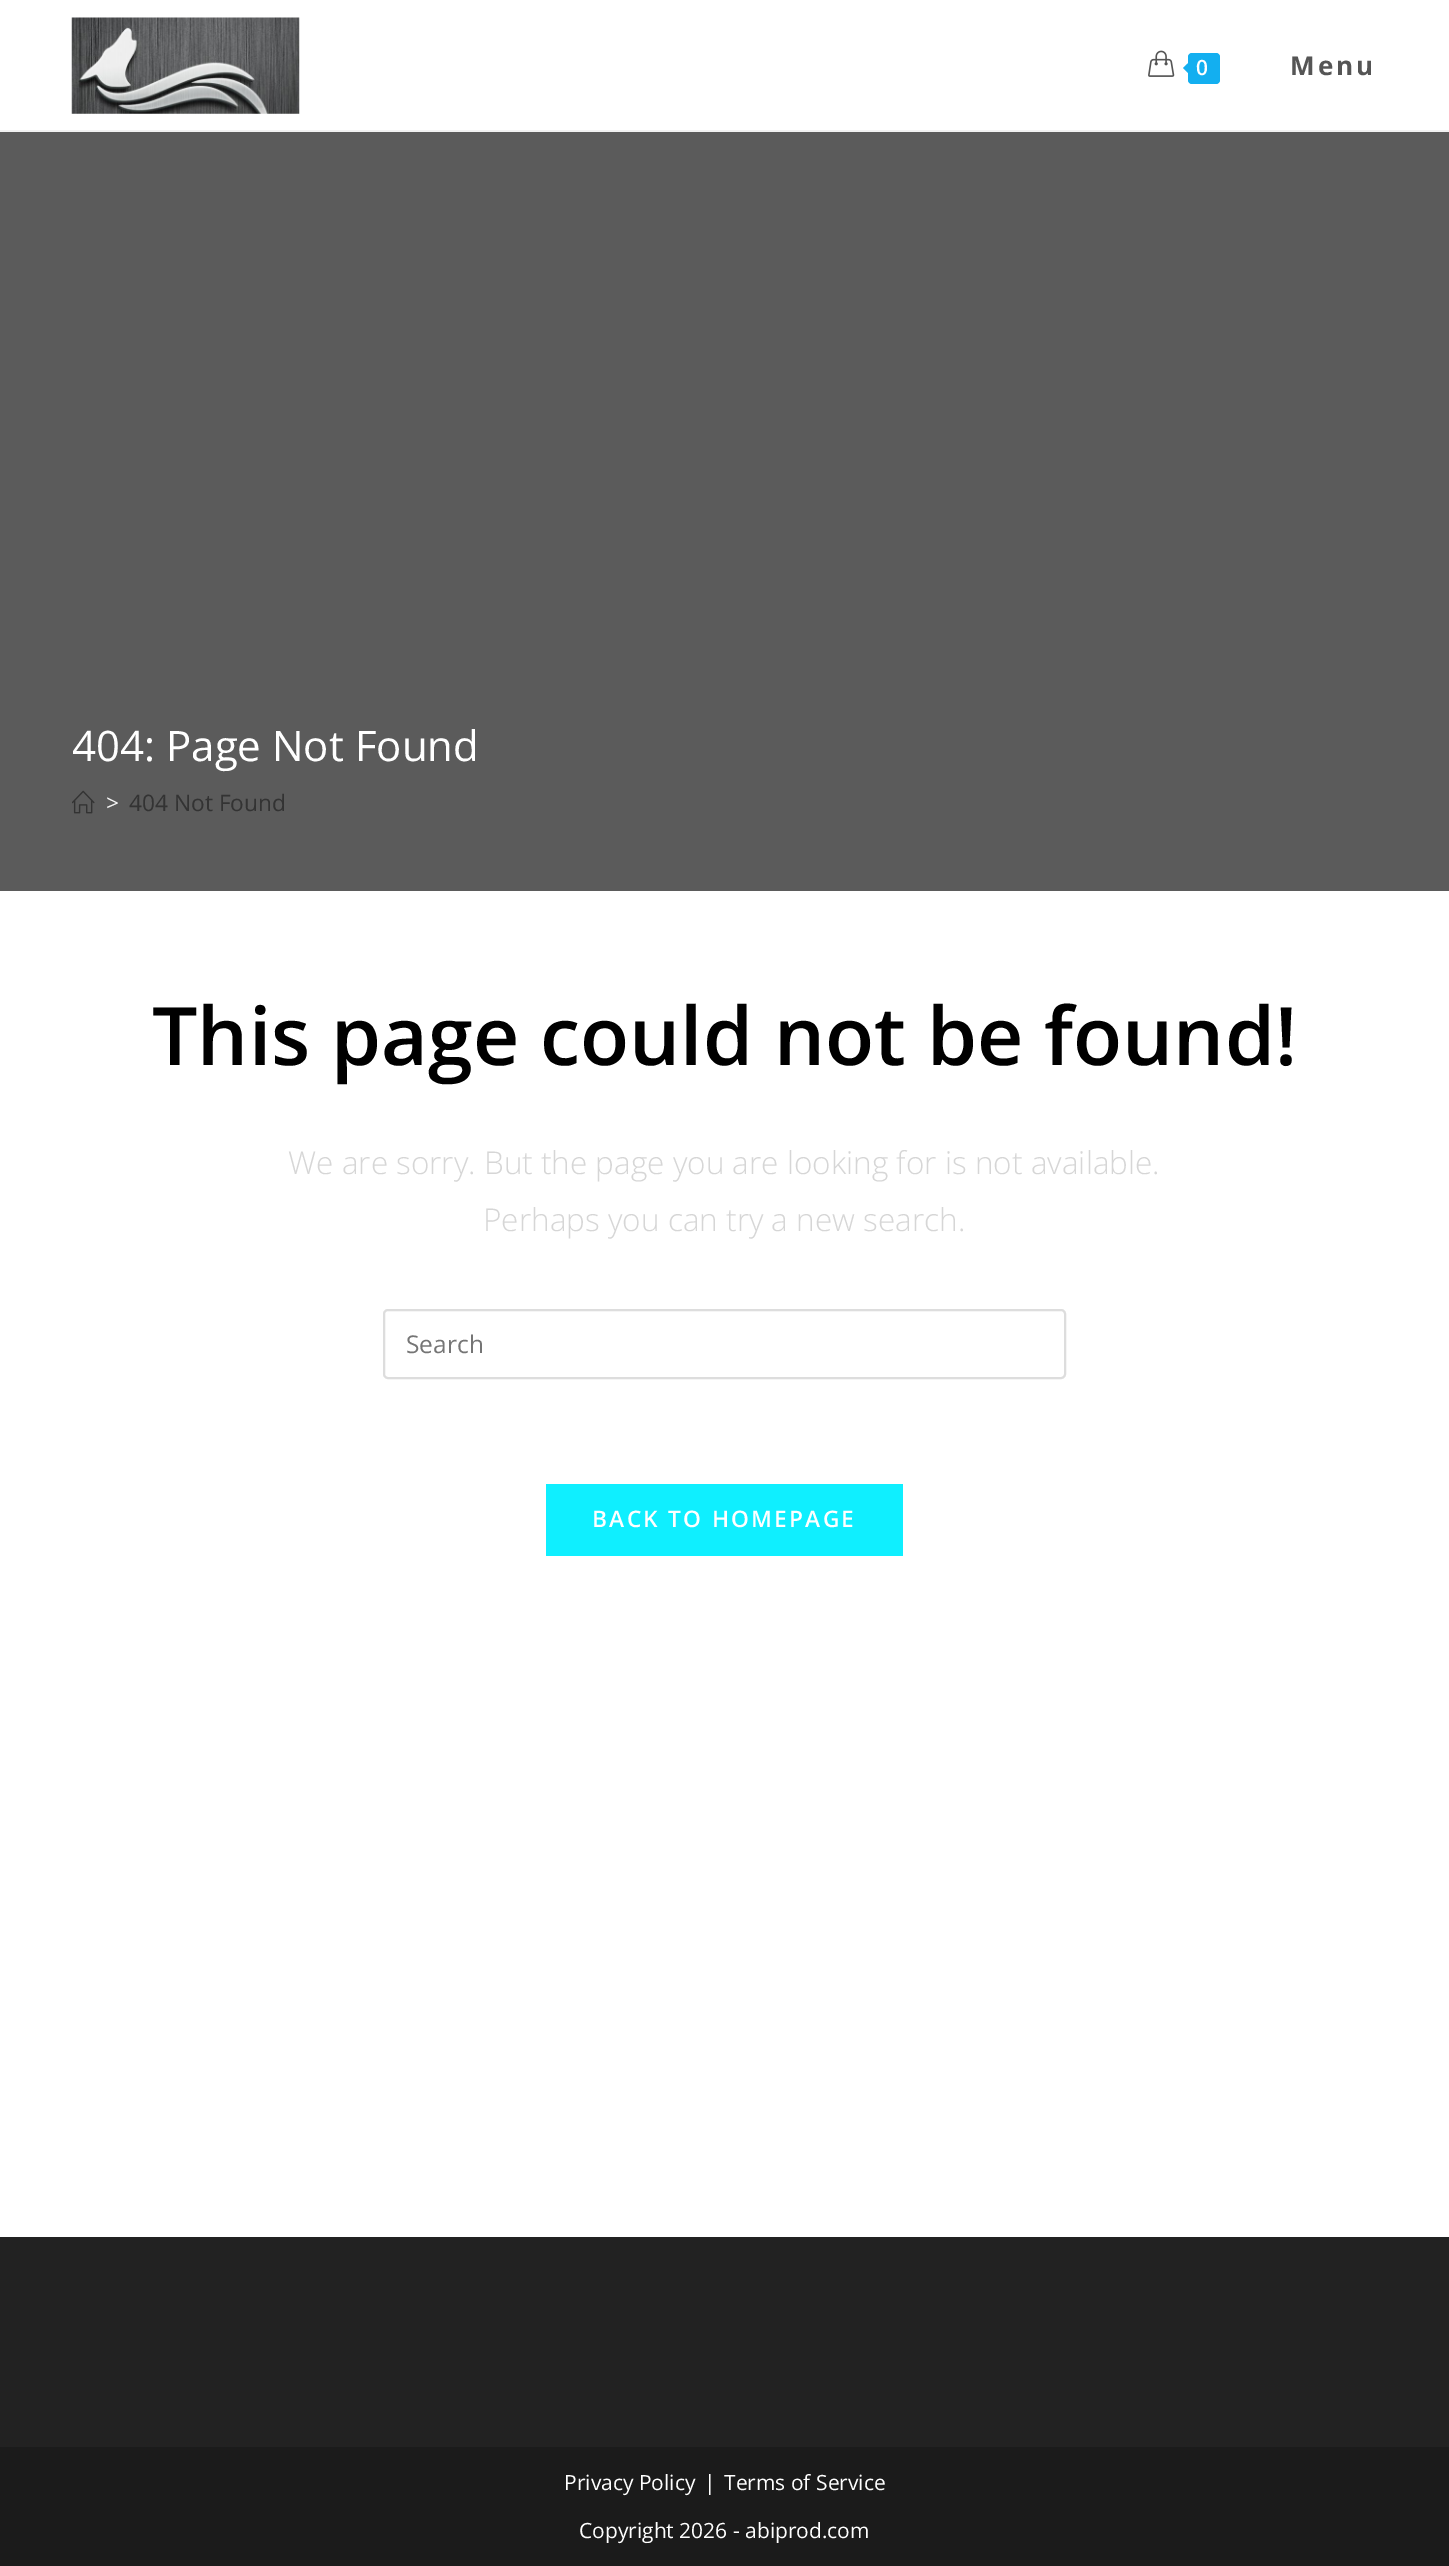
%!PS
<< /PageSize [1449 2566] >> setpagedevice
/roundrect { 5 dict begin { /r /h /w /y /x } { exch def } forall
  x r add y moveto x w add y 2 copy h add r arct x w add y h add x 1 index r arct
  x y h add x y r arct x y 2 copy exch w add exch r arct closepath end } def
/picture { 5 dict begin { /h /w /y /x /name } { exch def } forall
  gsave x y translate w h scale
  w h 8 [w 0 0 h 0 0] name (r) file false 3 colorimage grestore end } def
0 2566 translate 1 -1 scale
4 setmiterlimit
1 setgray
0 0 1449 2566 rectfill
0.945 setgray
0 130 1449 2 rectfill
(img1.rgb) 71 17 229 97 picture
(img2.rgb) 1148 50 27 27 picture
0.075 0.686 0.941 setrgbcolor
1188 53 32 31 4 roundrect fill
newpath 1192 59.5 moveto 1192 77 lineto 1183 68 lineto closepath fill
/OpenSans-SemiBold [21 0 0 -21 0 0] selectfont
1 setgray
1196 75 moveto 3 0 (0) ashow
/OpenSans-Bold [26 0 0 -26 0 0] selectfont
0.333 setgray
1290 75 moveto 3 0 (Menu) ashow
0.357 setgray
0 132 1449 759 rectfill
/OpenSans-Regular [42 0 0 -42 0 0] selectfont
1 setgray
72 761 moveto (404: Page Not Found) show
(img3.rgb) 72 790 23 24 picture
/OpenSans-Regular [22.75 0 0 -22.75 0 0] selectfont
0.957 setgray
106 811 moveto (>) show
0.2 setgray
129 811 moveto (404 Not Found) show
/OpenSans-SemiBold [80.5 0 0 -80.5 0 0] selectfont
0 setgray
152 1065 moveto (This page could not be found!) show
/OpenSans-Light [31.5 0 0 -31.5 0 0] selectfont
0.839 setgray
288 1174 moveto (We are sorry. But the page you are looking for is not available.) show
483 1231 moveto (Perhaps you can try a new search.) show
0.867 setgray
2 setlinewidth
384 1310 681 68 4 roundrect stroke
/OpenSans-Regular [24.5 0 0 -24.5 0 0] selectfont
0.459 setgray
406 1353 moveto (Search) show
0.059 0.937 1 setrgbcolor
546 1484 357 72 rectfill
/OpenSans-SemiBold [22.75 0 0 -22.75 0 0] selectfont
1 setgray
592 1527 moveto 2.25 0 (BACK TO HOMEPAGE) ashow
0.133 setgray
0 2237 1449 210 rectfill
0.106 setgray
0 2447 1449 119 rectfill
/OpenSans-Regular [21 0 0 -21 0 0] selectfont
1 setgray
564 2490 moveto (Privacy Policy) show
704 2490 moveto (|) show
724 2490 moveto (Terms of Service) show
579 2538 moveto (Copyright 2026 - abiprod.com) show
showpage
